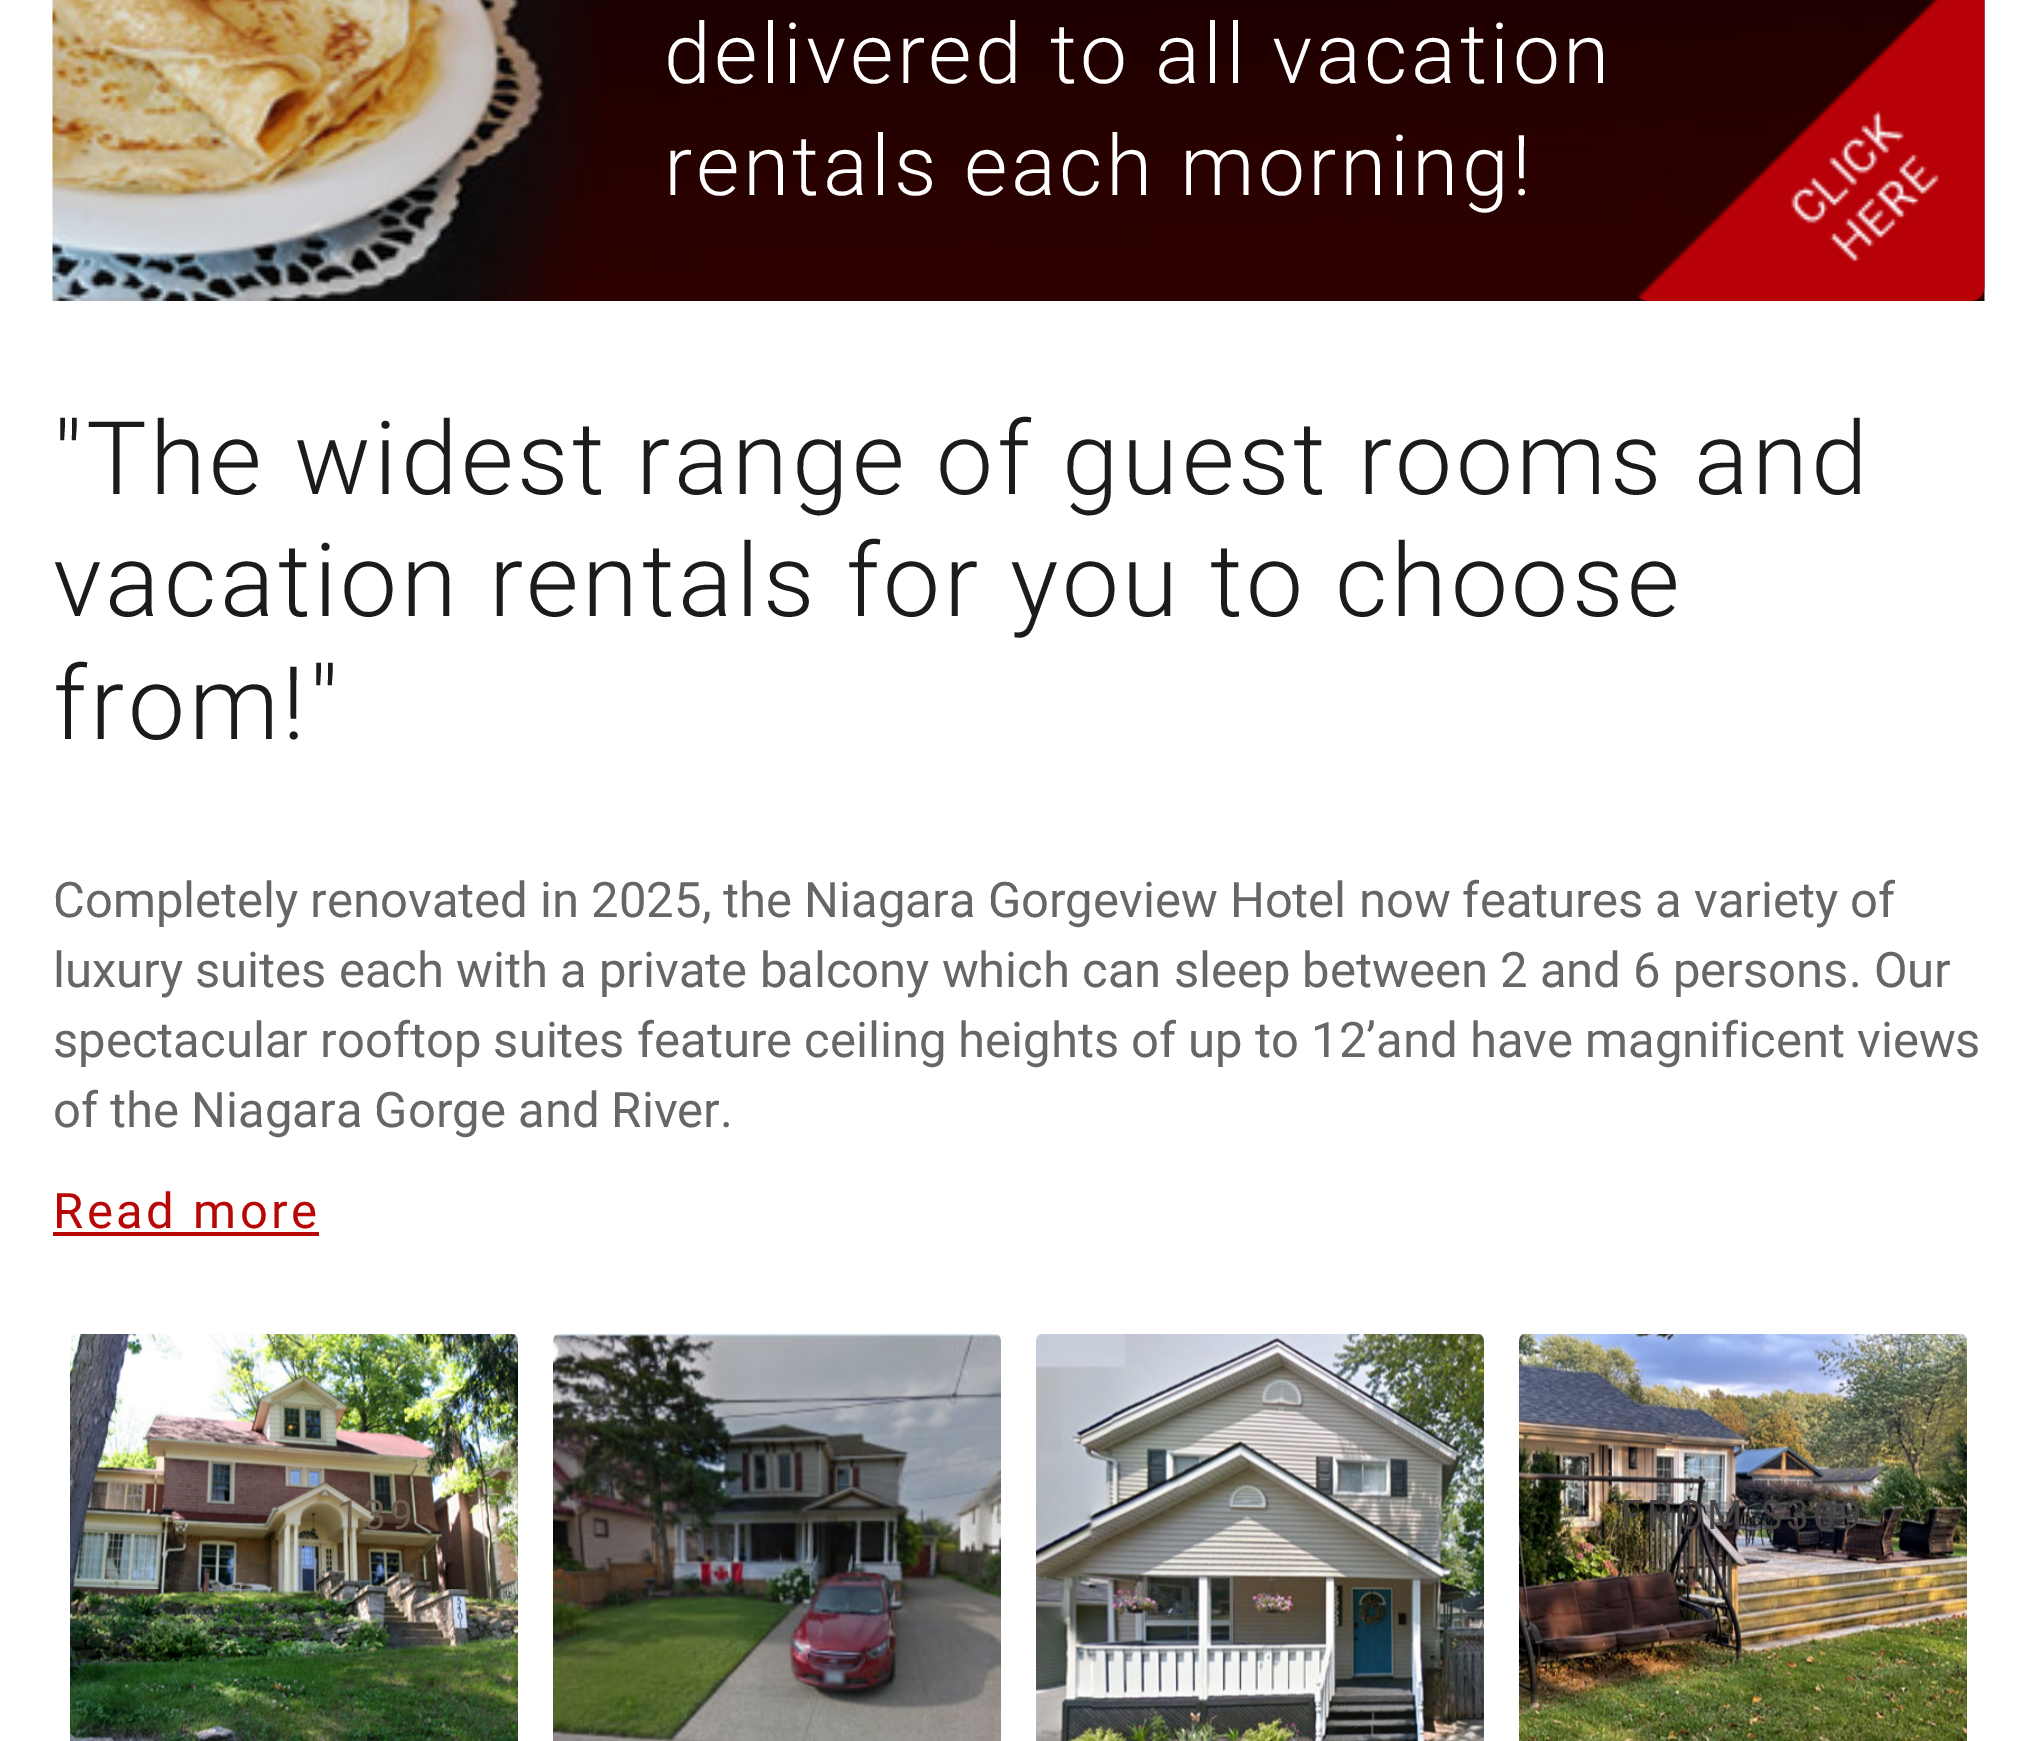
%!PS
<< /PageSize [2037 1741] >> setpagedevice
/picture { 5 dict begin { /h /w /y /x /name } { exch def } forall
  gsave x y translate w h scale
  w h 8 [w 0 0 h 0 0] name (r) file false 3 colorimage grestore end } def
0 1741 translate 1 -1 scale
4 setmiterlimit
1 setgray
0 0 2037 1741 rectfill
(img1.rgb) 52 0 1933 301 picture
/Roboto-Light [84 0 0 -84 0 0] selectfont
664 83 moveto 3.5 0 (delivered to all vacation) ashow
664 195 moveto 3.5 0 (rentals each morning!) ashow
(img2.rgb) 1637 0 348 301 picture
/Roboto-Light [101.8 0 0 -101.8 0 0] selectfont
0.106 setgray
53 494 moveto 3.5 0 ("The widest range of guest rooms and) ashow
53 616 moveto 3.5 0 (vacation rentals for you to choose) ashow
53 739 moveto 3.5 0 (from!") ashow
/Roboto-Regular [49 0 0 -49 0 0] selectfont
0.4 setgray
53 917 moveto (Completely renovated in 2025, the Niagara Gorgeview Hotel now features a variety of) show
53 987 moveto (luxury suites each with a private balcony which can sleep between 2 and 6 persons. Our) show
53 1057 moveto (spectacular rooftop suites feature ceiling heights of up to 12’and have magnificent views) show
53 1127 moveto (of the Niagara Gorge and River.) show
0.718 0.027 0.027 setrgbcolor
53 1228 moveto 3.5 0 (Read more) ashow
53 1232 266 4 rectfill
(img3.rgb) 70 1334 448 407 picture
/Roboto-Regular [40.75 0 0 -40.75 0 0] selectfont
0.427 0.369 0.314 setrgbcolor
337 1529 moveto 3.5 0 (139) ashow
(img4.rgb) 553 1334 448 407 picture
(img5.rgb) 1036 1334 448 407 picture
(img6.rgb) 1519 1334 448 407 picture
0.275 0.267 0.259 setrgbcolor
1621 1529 moveto 3.5 0 (FROM $309) ashow
showpage
